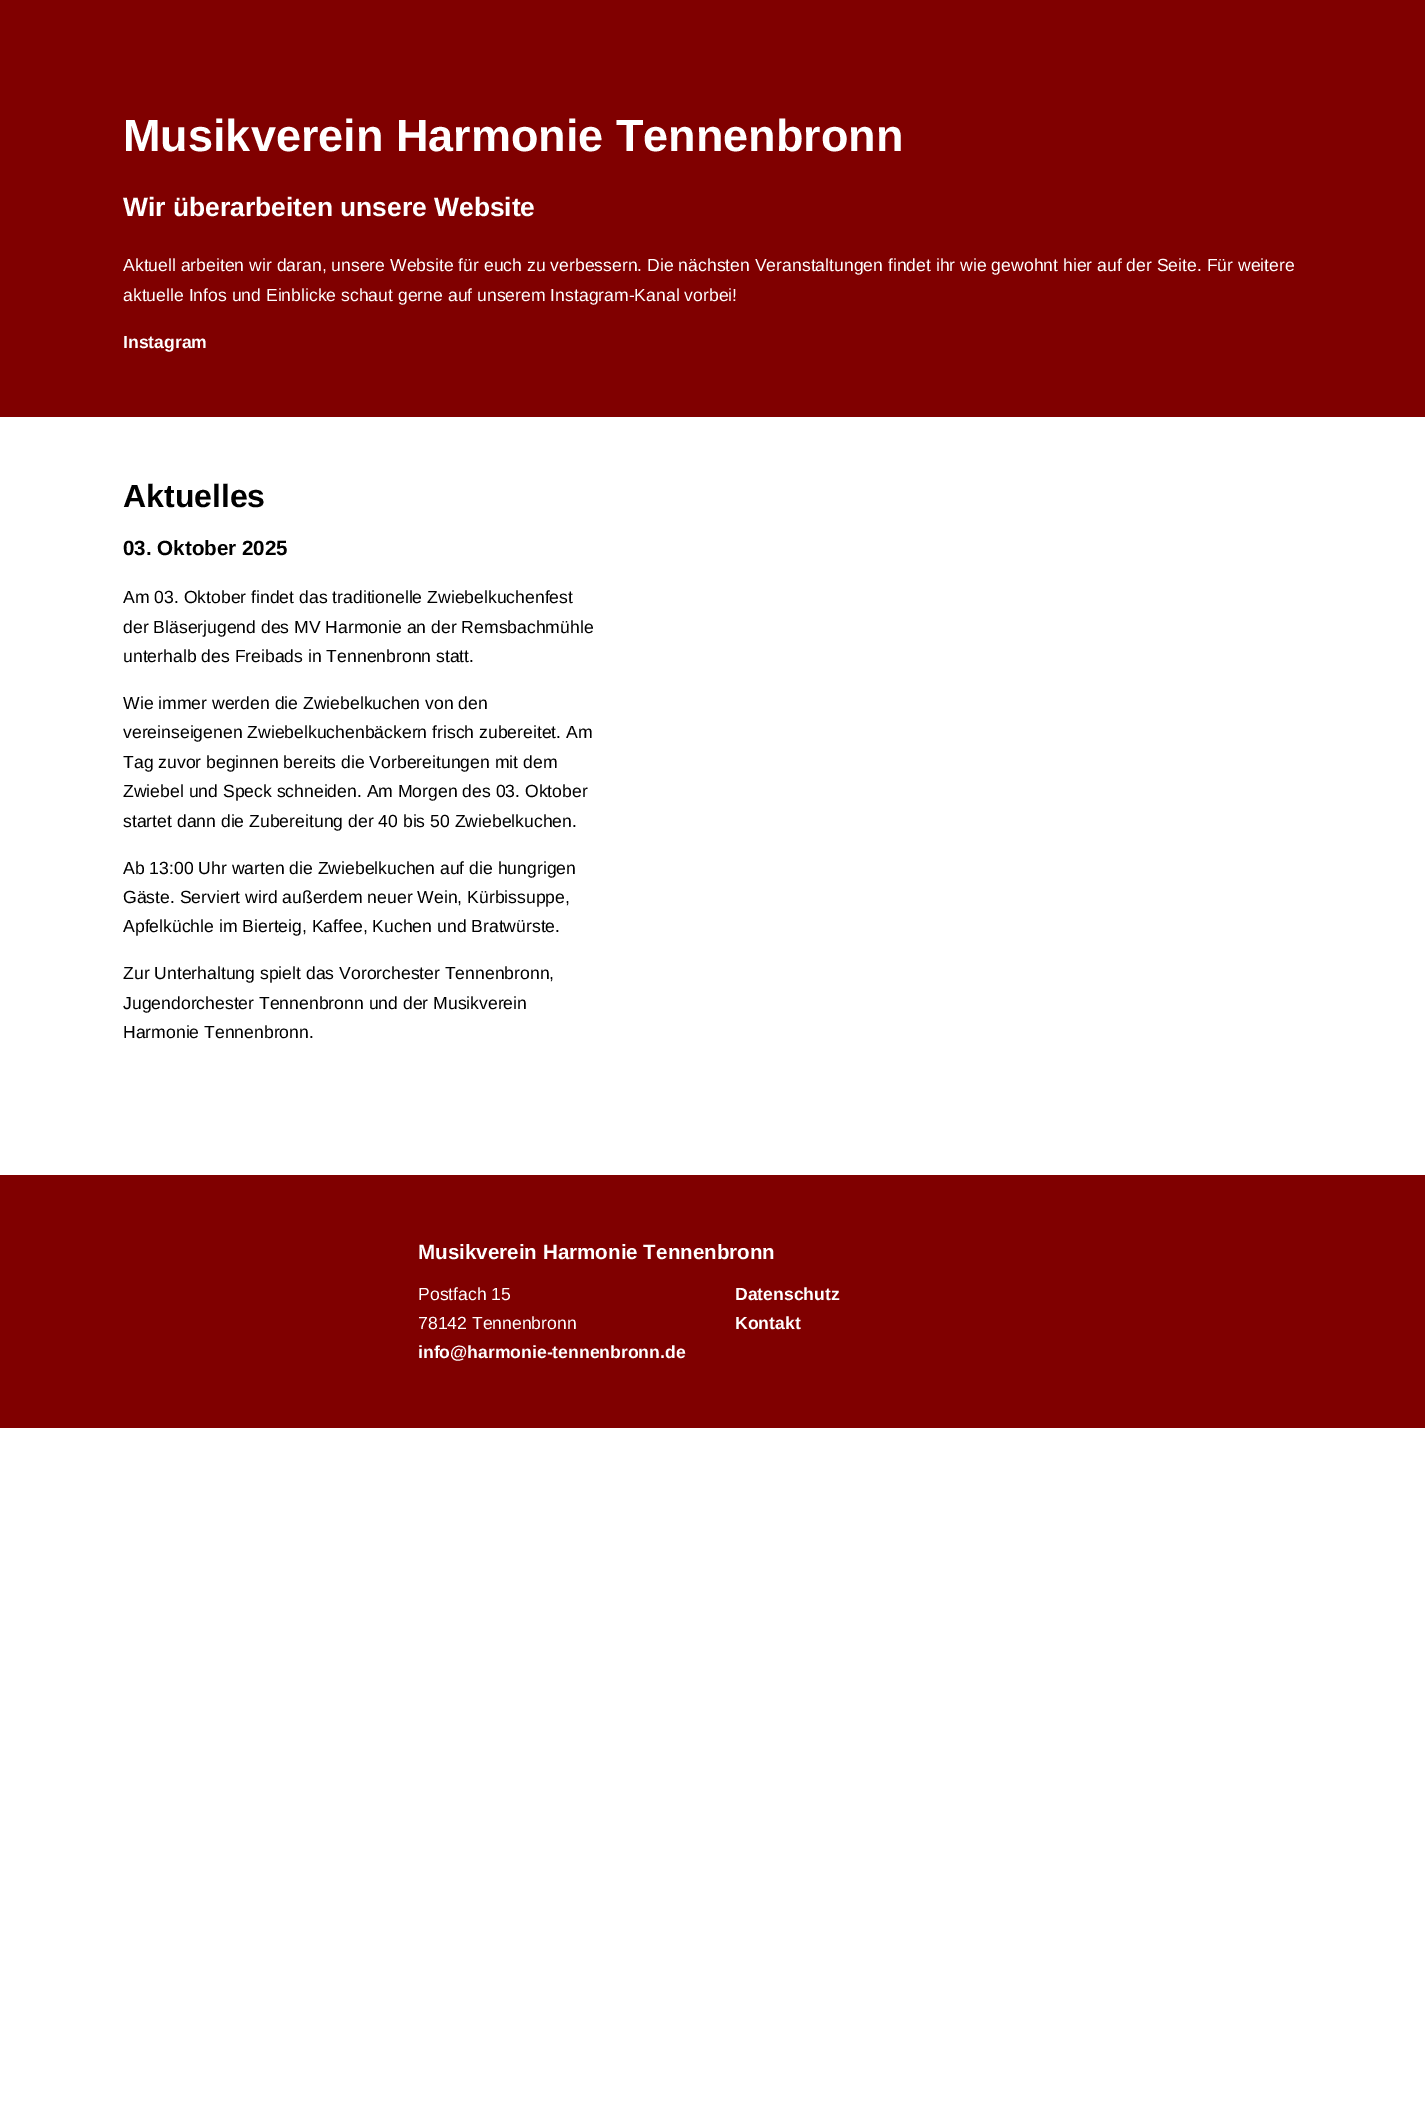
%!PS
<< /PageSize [1425 2112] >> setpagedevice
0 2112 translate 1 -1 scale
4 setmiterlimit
1 setgray
0 0 1425 2112 rectfill
0.502 0 0 setrgbcolor
0 0 1425 417 rectfill
/LiberationSans-Bold [45 0 0 -45 0 0] selectfont
1 setgray
123 151 moveto (Musikverein Harmonie Tennenbronn) show
/LiberationSans-Bold [26.4 0 0 -26.4 0 0] selectfont
123 216 moveto (Wir überarbeiten unsere Website) show
/LiberationSans-Regular [17.6 0 0 -17.6 0 0] selectfont
123 271 moveto (Aktuell arbeiten wir daran, unsere Website für euch zu verbessern. Die nächsten Veranstaltungen findet ihr wie gewohnt hier auf der Seite. Für weitere) show
123 301 moveto (aktuelle Infos und Einblicke schaut gerne auf unserem Instagram-Kanal vorbei!) show
/LiberationSans-Bold [17.6 0 0 -17.6 0 0] selectfont
123 348 moveto (Instagram) show
/LiberationSans-Bold [32 0 0 -32 0 0] selectfont
0 setgray
123 507 moveto (Aktuelles) show
/LiberationSans-Bold [20.6 0 0 -20.6 0 0] selectfont
123 555 moveto (03. Oktober 2025) show
/LiberationSans-Regular [17.6 0 0 -17.6 0 0] selectfont
123 603 moveto (Am 03. Oktober findet das traditionelle Zwiebelkuchenfest) show
123 633 moveto (der Bläserjugend des MV Harmonie an der Remsbachmühle) show
123 662 moveto (unterhalb des Freibads in Tennenbronn statt.) show
123 709 moveto (Wie immer werden die Zwiebelkuchen von den) show
123 738 moveto (vereinseigenen Zwiebelkuchenbäckern frisch zubereitet. Am) show
123 768 moveto (Tag zuvor beginnen bereits die Vorbereitungen mit dem) show
123 797 moveto (Zwiebel und Speck schneiden. Am Morgen des 03. Oktober) show
123 827 moveto (startet dann die Zubereitung der 40 bis 50 Zwiebelkuchen.) show
123 874 moveto (Ab 13:00 Uhr warten die Zwiebelkuchen auf die hungrigen) show
123 903 moveto (Gäste. Serviert wird außerdem neuer Wein, Kürbissuppe,) show
123 932 moveto (Apfelküchle im Bierteig, Kaffee, Kuchen und Bratwürste.) show
123 979 moveto (Zur Unterhaltung spielt das Vororchester Tennenbronn,) show
123 1009 moveto (Jugendorchester Tennenbronn und der Musikverein) show
123 1038 moveto (Harmonie Tennenbronn.) show
0.502 0 0 setrgbcolor
0 1175 1425 253 rectfill
/LiberationSans-Bold [20.6 0 0 -20.6 0 0] selectfont
1 setgray
418 1259 moveto (Musikverein Harmonie Tennenbronn) show
/LiberationSans-Regular [17.6 0 0 -17.6 0 0] selectfont
418 1300 moveto (Postfach 15) show
418 1329 moveto (78142 Tennenbronn) show
/LiberationSans-Bold [17.6 0 0 -17.6 0 0] selectfont
418 1358 moveto (info@harmonie-tennenbronn.de) show
735 1300 moveto (Datenschutz) show
735 1329 moveto (Kontakt) show
showpage
